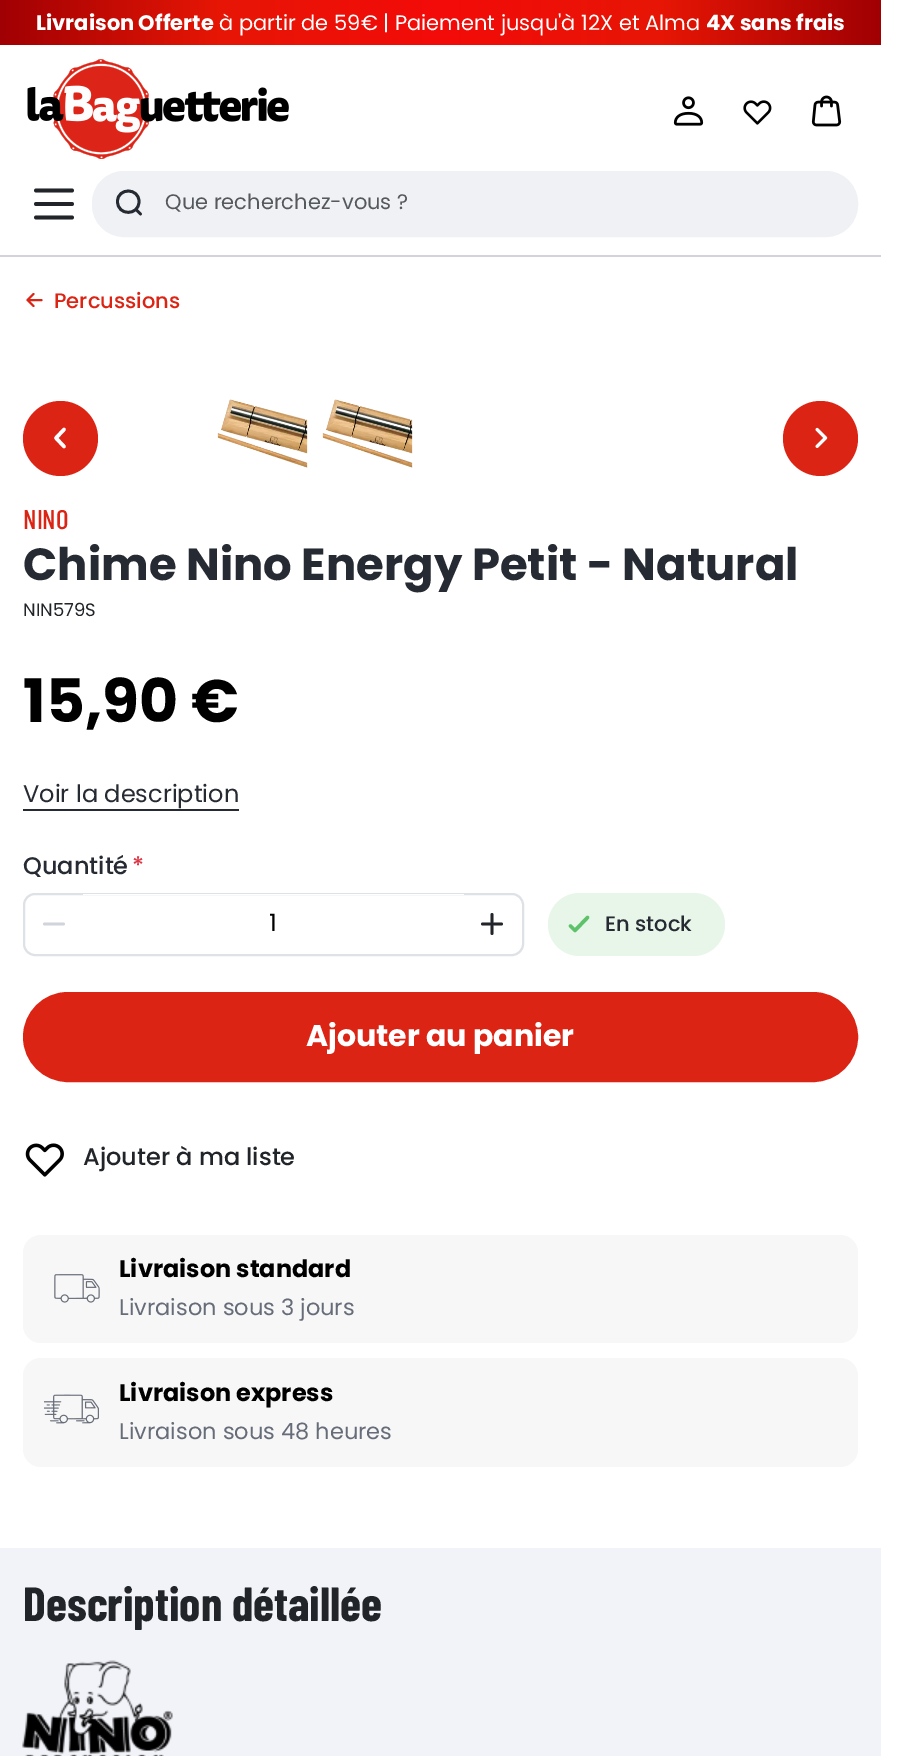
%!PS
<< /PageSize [902 1756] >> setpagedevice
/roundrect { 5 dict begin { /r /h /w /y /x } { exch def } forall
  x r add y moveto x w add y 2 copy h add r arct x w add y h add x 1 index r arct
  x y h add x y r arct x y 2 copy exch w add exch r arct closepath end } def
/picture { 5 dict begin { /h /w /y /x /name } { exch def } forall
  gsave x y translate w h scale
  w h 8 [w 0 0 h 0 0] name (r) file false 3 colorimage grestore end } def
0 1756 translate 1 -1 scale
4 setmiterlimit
1 setgray
0 0 902 1756 rectfill
0.82 0.835 0.859 setrgbcolor
0 255 881 2 rectfill
gsave newpath 0 0 moveto 881 0 lineto 881 45 lineto 0 45 lineto closepath clip newpath
<< /ShadingType 2 /ColorSpace /DeviceRGB /Coords [0 23 881 22] /Extend [true true] /Function << /FunctionType 3 /Domain [0 1] /Functions [<< /FunctionType 2 /Domain [0 1] /C0 [0.627 0 0.012] /C1 [0.906 0.086 0.02] /N 1 >> << /FunctionType 2 /Domain [0 1] /C0 [0.906 0.086 0.02] /C1 [0.953 0.043 0.035] /N 1 >> << /FunctionType 2 /Domain [0 1] /C0 [0.953 0.043 0.035] /C1 [0.906 0.086 0.02] /N 1 >> << /FunctionType 2 /Domain [0 1] /C0 [0.906 0.086 0.02] /C1 [0.627 0 0.012] /N 1 >>] /Bounds [0.25 0.5 0.75] /Encode [0 1 0 1 0 1 0 1] >> >> shfill grestore
/Poppins-Bold [21 0 0 -21 0 0] selectfont
1 setgray
36 30 moveto (Livraison Offerte) show
/Poppins-Regular [21 0 0 -21 0 0] selectfont
219 30 moveto (à partir de 59€ | Paiement jusqu'à 12X et Alma) show
/Poppins-Bold [21 0 0 -21 0 0] selectfont
706 30 moveto (4X sans frais) show
(img1.rgb) 27 59 262 100 picture
(img2.rgb) 673 96 31 30 picture
(img3.rgb) 743 100 29 25 picture
(img4.rgb) 811 95 31 32 picture
0.129 0.145 0.161 setrgbcolor
3.8 setlinewidth
1 setlinecap
newpath 72 217.5 moveto 36 217.5 lineto 72 204 moveto 36 204 lineto 72 190.5 moveto 36 190.5 lineto stroke
0.937 0.945 0.957 setrgbcolor
93 172 764 64 31 roundrect gsave fill grestore
2 setlinewidth
0 setlinecap
stroke
0.149 0.165 0.196 setrgbcolor
2.8 setlinewidth
1 setlinecap
newpath 136 209.5 moveto 140.5 214 lineto 139 201.5 moveto 139 216 117.5 216 117.5 201.5 curveto 117.5 187.5 139 187.5 139 201.5 curveto closepath stroke
/Poppins-Regular [21 0 0 -21 0 0] selectfont
0.333 0.345 0.361 setrgbcolor
165 209 moveto (Que recherchez-vous ?) show
0.863 0.141 0.082 setrgbcolor
2 setlinewidth
1 setlinejoin
newpath 33.5 306 moveto 27.5 300 lineto 27.5 300 moveto 33.5 294 lineto 27.5 300 moveto 41.5 300 lineto stroke
/Poppins-Medium [21 0 0 -21 0 0] selectfont
54 308 moveto (Percussions) show
newpath 60.5 438.5 37.5 0 360 arc closepath fill
1 setgray
3.5 setlinewidth
newpath 64 446.5 moveto 56 438 lineto 64 429.5 lineto stroke
(img5.rgb) 217 399 91 69 picture
(img6.rgb) 322 399 91 69 picture
0.863 0.141 0.082 setrgbcolor
newpath 820.5 438.5 37.5 0 360 arc closepath fill
(img7.rgb) 815 427 13 21 picture
/BarlowCondensed-Medium [27 0 0 -27 0 0] selectfont
23 529 moveto (NINO) show
/Poppins-Bold [45 0 0 -45 0 0] selectfont
0.149 0.165 0.196 setrgbcolor
23 580 moveto (Chime Nino Energy Petit - Natural) show
/Poppins-Regular [18 0 0 -18 0 0] selectfont
0.129 0.145 0.161 setrgbcolor
23 616 moveto (NIN579S) show
/Poppins-Bold [60 0 0 -60 0 0] selectfont
0 setgray
23 722 moveto (15,90 €) show
/Poppins-Regular [24 0 0 -24 0 0] selectfont
0.149 0.165 0.196 setrgbcolor
23 802 moveto (Voir la description) show
23 809 216 2 rectfill
/Poppins-Medium [24 0 0 -24 0 0] selectfont
23 874 moveto (Quantité) show
0.863 0.208 0.271 setrgbcolor
132 874 moveto (*) show
0.871 0.886 0.902 setrgbcolor
2 setlinewidth
0 setlinecap
0 setlinejoin
24 894 499 61 11 roundrect stroke
0.82 0.835 0.859 setrgbcolor
2.8 setlinewidth
1 setlinecap
1 setlinejoin
newpath 44.5 924 moveto 63.5 924 lineto stroke
1 setgray
83 894 381 1 rectfill
/Poppins-Regular [24 0 0 -24 0 0] selectfont
0 setgray
269 931 moveto (1) show
0.129 0.145 0.161 setrgbcolor
newpath 492 914.5 moveto 492 933.5 lineto 482.5 924 moveto 501.5 924 lineto stroke
0.91 0.965 0.918 setrgbcolor
548 893 177 63 31.5 roundrect fill
0.369 0.761 0.416 setrgbcolor
3.5 setlinewidth
newpath 587.5 917.5 moveto 575 930.5 lineto 570.5 926 lineto stroke
/Poppins-Medium [21 0 0 -21 0 0] selectfont
0.149 0.165 0.196 setrgbcolor
605 931 moveto (En stock) show
0.863 0.141 0.082 setrgbcolor
24 993 833 88 44 roundrect gsave fill grestore
2 setlinewidth
0 setlinecap
0 setlinejoin
stroke
/Poppins-Bold [30 0 0 -30 0 0] selectfont
1 setgray
306 1046 moveto (Ajouter au panier) show
(img8.rgb) 25 1143 39 34 picture
/Poppins-Medium [24 0 0 -24 0 0] selectfont
0.129 0.145 0.161 setrgbcolor
83 1165 moveto (Ajouter à ma liste) show
0.969 setgray
23 1235 835 108 18 roundrect fill
(img9.rgb) 54 1274 46 29 picture
/Poppins-Bold [24 0 0 -24 0 0] selectfont
0 setgray
119 1277 moveto (Livraison standard) show
/Poppins-Regular [22.5 0 0 -22.5 0 0] selectfont
0.4 0.424 0.471 setrgbcolor
119 1315 moveto (Livraison sous 3 jours) show
0.969 setgray
23 1358 835 109 18 roundrect fill
(img10.rgb) 44 1394 55 30 picture
/Poppins-Bold [24 0 0 -24 0 0] selectfont
0 setgray
119 1401 moveto (Livraison express) show
/Poppins-Regular [22.5 0 0 -22.5 0 0] selectfont
0.4 0.424 0.471 setrgbcolor
119 1439 moveto (Livraison sous 48 heures) show
0.949 0.953 0.976 setrgbcolor
0 1548 881 208 rectfill
/BarlowCondensed-Bold [48 0 0 -48 0 0] selectfont
0.129 0.145 0.161 setrgbcolor
23 1621 moveto (Description détaillée) show
(img11.rgb) 22 1660 151 96 picture
showpage
